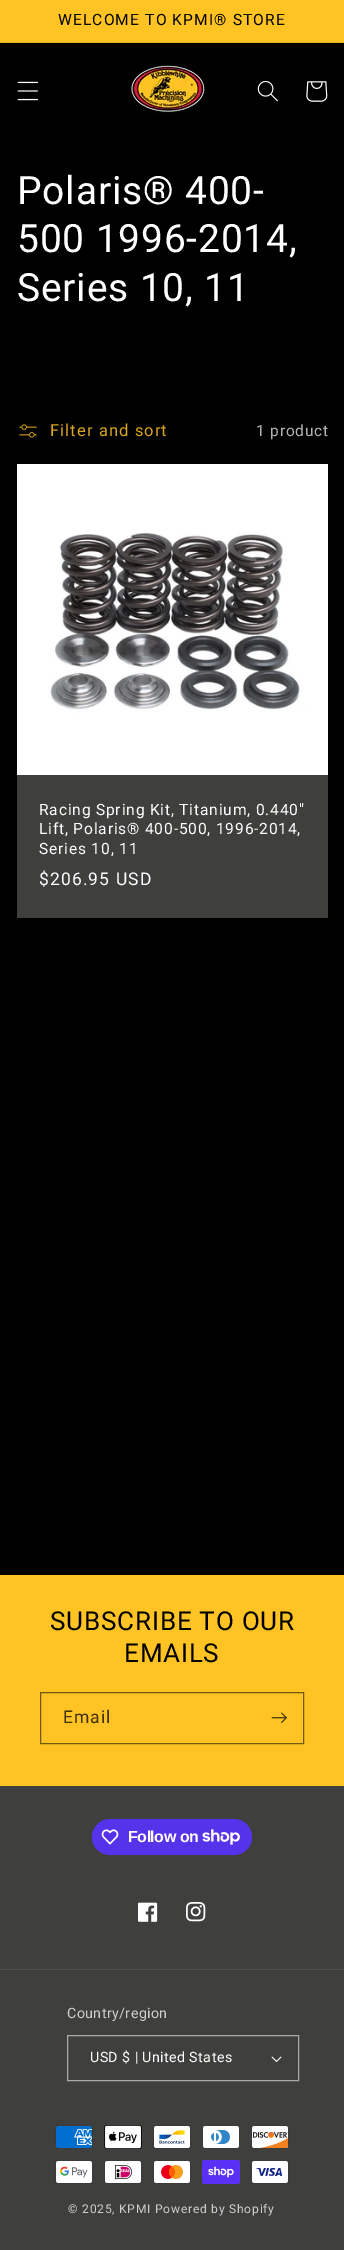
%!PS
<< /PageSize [344 2250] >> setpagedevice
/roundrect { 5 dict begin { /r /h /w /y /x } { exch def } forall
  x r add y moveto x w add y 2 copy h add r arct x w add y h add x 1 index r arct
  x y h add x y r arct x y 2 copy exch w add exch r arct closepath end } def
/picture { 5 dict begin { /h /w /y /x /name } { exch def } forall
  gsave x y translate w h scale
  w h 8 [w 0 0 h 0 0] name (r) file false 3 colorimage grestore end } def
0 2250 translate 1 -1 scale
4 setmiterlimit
0 setgray
0 0 344 2250 rectfill
1 0.769 0.137 setrgbcolor
0 0 344 42 rectfill
0.922 0.706 0.125 setrgbcolor
0 42 344 1 rectfill
/Roboto-Regular [15.6 0 0 -15.6 0 0] selectfont
0 setgray
58 25 moveto 1.1 0 (WELCOME TO KPMI® STORE) ashow
(img1.rgb) 17 81 21 20 picture
(img2.rgb) 128 63 78 52 picture
(img3.rgb) 257 80 21 22 picture
(img4.rgb) 306 81 22 21 picture
/Roboto-Regular [39 0 0 -39 0 0] selectfont
1 setgray
17 204 moveto 0.8 0 (Polaris® 400-) ashow
17 252 moveto 0.8 0 (500 1996-2014,) ashow
17 301 moveto 0.8 0 (Series 10, 11) ashow
(img5.rgb) 19 424 18 14 picture
/Roboto-Regular [16.5 0 0 -16.5 0 0] selectfont
0.851 0.655 0.118 setrgbcolor
50 436 moveto 1.1 0 (Filter and sort) ashow
/Roboto-Regular [15.5 0 0 -15.5 0 0] selectfont
0.702 setgray
256 436 moveto 0.75 0 (1 product) ashow
0.247 0.247 0.243 setrgbcolor
17 775 311 143 rectfill
(img6.rgb) 17 464 311 311 picture
/Roboto-Regular [15.6 0 0 -15.6 0 0] selectfont
1 setgray
39 815 moveto 0.8 0 (Racing Spring Kit, Titanium, 0.440") ashow
39 834 moveto 0.8 0 (Lift, Polaris® 400-500, 1996-2014,) ashow
39 854 moveto 0.8 0 (Series 10, 11) ashow
/Roboto-Regular [17.5 0 0 -17.5 0 0] selectfont
39 885 moveto 1.1 0 ($206.95 USD) ashow
1 0.769 0.137 setrgbcolor
0 1575 344 211 rectfill
/Roboto-Regular [26 0 0 -26 0 0] selectfont
0 setgray
50 1630 moveto 0.8 0 (SUBSCRIBE TO OUR) ashow
124 1662 moveto 0.8 0 (EMAILS) ashow
0.451 0.345 0.063 setrgbcolor
40.5 1692.5 263 51 rectstroke
/Roboto-Regular [17.5 0 0 -17.5 0 0] selectfont
0.251 0.192 0.035 setrgbcolor
63 1723 moveto 1.1 0 (Email) ashow
(img7.rgb) 271 1712 16 11 picture
0.247 0.247 0.243 setrgbcolor
0 1786 344 464 rectfill
0.329 0.2 0.922 setrgbcolor
92 1819 160 36 18 roundrect fill
(img8.rgb) 101 1829 18 16 picture
/LiberationSans-Bold [16 0 0 -16 0 0] selectfont
1 setgray
128 1842 moveto -0.5 0 (Follow on) ashow
(img9.rgb) 202 1829 38 16 picture
(img10.rgb) 138 1902 20 20 picture
(img11.rgb) 186 1902 20 20 picture
0.306 0.306 0.302 setrgbcolor
0 1969 344 1 rectfill
/Roboto-Regular [14.25 0 0 -14.25 0 0] selectfont
0.812 setgray
67 2018 moveto 0.4 0 (Country/region) ashow
(img12.rgb) 271 2056 11 6 picture
0.663 0.663 0.659 setrgbcolor
67.5 2035.5 231 45 rectstroke
1 setgray
90 2062 moveto 0.4 0 (USD $ | United States) ashow
(img13.rgb) 55 2125 38 24 picture
(img14.rgb) 104 2125 38 24 picture
(img15.rgb) 153 2125 38 24 picture
(img16.rgb) 202 2125 38 24 picture
(img17.rgb) 251 2125 38 24 picture
(img18.rgb) 55 2160 38 24 picture
(img19.rgb) 104 2160 38 24 picture
(img20.rgb) 153 2160 38 24 picture
(img21.rgb) 202 2160 38 24 picture
(img22.rgb) 251 2160 38 24 picture
/Roboto-Regular [12.1 0 0 -12.1 0 0] selectfont
0.812 setgray
68 2213 moveto 0.75 0 (© 2025, KPMI Powered by Shopify) ashow
showpage
